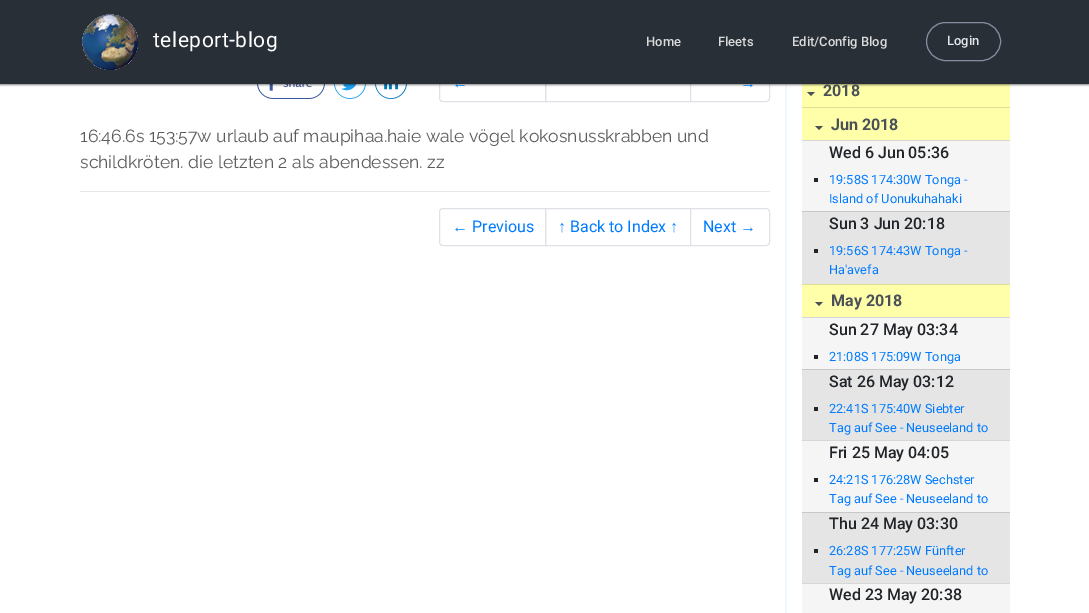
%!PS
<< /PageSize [1089 613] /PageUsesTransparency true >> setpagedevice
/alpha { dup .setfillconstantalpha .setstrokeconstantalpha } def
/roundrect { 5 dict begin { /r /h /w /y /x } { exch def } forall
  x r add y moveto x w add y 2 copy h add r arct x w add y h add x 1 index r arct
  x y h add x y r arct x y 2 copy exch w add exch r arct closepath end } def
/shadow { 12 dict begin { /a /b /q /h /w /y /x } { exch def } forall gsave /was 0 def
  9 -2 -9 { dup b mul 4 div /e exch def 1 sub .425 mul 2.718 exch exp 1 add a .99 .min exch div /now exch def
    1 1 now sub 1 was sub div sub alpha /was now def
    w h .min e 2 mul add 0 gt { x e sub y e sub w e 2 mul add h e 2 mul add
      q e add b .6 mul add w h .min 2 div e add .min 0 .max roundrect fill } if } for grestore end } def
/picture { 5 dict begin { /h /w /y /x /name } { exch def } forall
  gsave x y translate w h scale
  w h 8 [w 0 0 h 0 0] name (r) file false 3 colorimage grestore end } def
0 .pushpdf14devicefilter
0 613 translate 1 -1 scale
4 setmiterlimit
1 setgray
0 0 1089 613 rectfill
(img2.rgb) 257 84 68 15 picture
(img3.rgb) 334 84 32 15 picture
(img4.rgb) 375 84 32 15 picture
0.871 0.886 0.902 setrgbcolor
newpath 443 64.5 moveto 545.5 64.5 lineto 545.5 101.5 lineto 443 101.5 lineto 441 101.5 439.5 100 439.5 98 curveto 439.5 68 lineto 439.5 66 441 64.5 443 64.5 curveto closepath stroke
545.5 64.5 145 37 rectstroke
1 setgray
newpath 690.5 64.5 moveto 766 64.5 lineto 768 64.5 769.5 66 769.5 68 curveto 769.5 98 lineto 769.5 100 768 101.5 766 101.5 curveto 690.5 101.5 lineto closepath gsave fill grestore
0.871 0.886 0.902 setrgbcolor
stroke
0.941 0.973 1 setrgbcolor
785 84 2 529 rectfill
1 1 0.667 setrgbcolor
802 84 208 23 rectfill
0 setgray
0 1 1089 84 0 1 0.5 shadow
/LiberationSans-Regular [16 0 0 -16 0 0] selectfont
0 0.482 1 setrgbcolor
452 88 moveto (←) show
740 88 moveto (→) show
0.157 0.184 0.216 setrgbcolor
0 0 1089 84 rectfill
(img1.rgb) 82 14 56 56 picture
/Roboto-Regular [21 0 0 -21 0 0] selectfont
1 setgray
153 47 moveto 0.5 0 (teleport-blog) ashow
/Roboto-Medium [13 0 0 -13 0 0] selectfont
0.855 setgray
646 46 moveto (Home) show
718 46 moveto (Fleets) show
792 46 moveto (Edit/Config Blog) show
0.525 0.553 0.627 setrgbcolor
926.5 22.5 74 38 19 roundrect stroke
0.89 0.902 0.918 setrgbcolor
947 45 moveto (Login) show
/Raleway-Thin [17.6 0 0 -17.6 0 0] selectfont
0.357 setgray
80 142 moveto (16:46.6s 153:57w urlaub auf maupihaa.haie wale vögel kokosnusskrabben und) show
80 168 moveto (schildkröten. die letzten 2 als abendessen. zz) show
0.902 setgray
80 191 690 1 rectfill
0.871 0.886 0.902 setrgbcolor
newpath 443 208.5 moveto 545.5 208.5 lineto 545.5 245.5 lineto 443 245.5 lineto 441 245.5 439.5 244 439.5 242 curveto 439.5 212 lineto 439.5 210 441 208.5 443 208.5 curveto closepath stroke
/LiberationSans-Regular [16 0 0 -16 0 0] selectfont
0 0.482 1 setrgbcolor
452 232 moveto (←) show
/Roboto-Regular [16 0 0 -16 0 0] selectfont
472 232 moveto (Previous) show
0.871 0.886 0.902 setrgbcolor
545.5 208.5 145 37 rectstroke
/LiberationSans-Regular [16 0 0 -16 0 0] selectfont
0 0.482 1 setrgbcolor
558 232 moveto (↑) show
/Roboto-Regular [16 0 0 -16 0 0] selectfont
570 232 moveto (Back to Index) show
/LiberationSans-Regular [16 0 0 -16 0 0] selectfont
670 232 moveto (↑) show
1 setgray
newpath 690.5 208.5 moveto 766 208.5 lineto 768 208.5 769.5 210 769.5 212 curveto 769.5 242 lineto 769.5 244 768 245.5 766 245.5 curveto 690.5 245.5 lineto closepath gsave fill grestore
0.871 0.886 0.902 setrgbcolor
stroke
/Roboto-Regular [16 0 0 -16 0 0] selectfont
0 0.482 1 setrgbcolor
703 232 moveto (Next) show
/LiberationSans-Regular [16 0 0 -16 0 0] selectfont
740 232 moveto (→) show
0.286 0.314 0.341 setrgbcolor
newpath 807 92 moveto 815 92 lineto 811 96 lineto closepath fill
/Roboto-Bold [16 0 0 -16 0 0] selectfont
823 96 moveto (2018) show
1 1 0.667 setrgbcolor
802 108 208 32 rectfill
0.875 0.875 0.584 setrgbcolor
802 107 208 1 rectfill
0.286 0.314 0.341 setrgbcolor
newpath 815 126 moveto 823 126 lineto 819 130 lineto closepath fill
831 130 moveto (Jun 2018) show
0.961 setgray
802 141 208 70 rectfill
0.839 setgray
802 140 208 1 rectfill
/Roboto-Medium [16 0 0 -16 0 0] selectfont
0.129 0.145 0.161 setrgbcolor
829 158 moveto (Wed 6 Jun 05:36) show
814 178 4 4 rectfill
/Roboto-Regular [12.75 0 0 -12.75 0 0] selectfont
0 0.482 1 setrgbcolor
829 184 moveto (19:58S 174:30W Tonga -) show
829 203 moveto (Island of Uonukuhahaki) show
0.898 setgray
802 212 208 72 rectfill
0.784 setgray
802 211 208 1 rectfill
/Roboto-Medium [16 0 0 -16 0 0] selectfont
0.129 0.145 0.161 setrgbcolor
829 229 moveto (Sun 3 Jun 20:18) show
814 249 4 4 rectfill
/Roboto-Regular [12.75 0 0 -12.75 0 0] selectfont
0 0.482 1 setrgbcolor
829 255 moveto (19:56S 174:43W Tonga -) show
829 274 moveto (Ha'avefa) show
1 1 0.667 setrgbcolor
802 285 208 32 rectfill
0.875 0.875 0.584 setrgbcolor
802 284 208 1 rectfill
0.286 0.314 0.341 setrgbcolor
newpath 815 302 moveto 823 302 lineto 819 306 lineto closepath fill
/Roboto-Bold [16 0 0 -16 0 0] selectfont
831 306 moveto (May 2018) show
0.961 setgray
802 318 208 51 rectfill
0.839 setgray
802 317 208 1 rectfill
/Roboto-Medium [16 0 0 -16 0 0] selectfont
0.129 0.145 0.161 setrgbcolor
829 335 moveto (Sun 27 May 03:34) show
814 355 4 4 rectfill
/Roboto-Regular [12.75 0 0 -12.75 0 0] selectfont
0 0.482 1 setrgbcolor
829 361 moveto (21:08S 175:09W Tonga) show
0.898 setgray
802 370 208 70 rectfill
0.784 setgray
802 369 208 1 rectfill
/Roboto-Medium [16 0 0 -16 0 0] selectfont
0.129 0.145 0.161 setrgbcolor
829 387 moveto (Sat 26 May 03:12) show
814 407 4 4 rectfill
/Roboto-Regular [12.75 0 0 -12.75 0 0] selectfont
0 0.482 1 setrgbcolor
829 413 moveto (22:41S 175:40W Siebter) show
829 432 moveto (Tag auf See - Neuseeland to) show
0.961 setgray
802 441 208 71 rectfill
0.839 setgray
802 440 208 1 rectfill
/Roboto-Medium [16 0 0 -16 0 0] selectfont
0.129 0.145 0.161 setrgbcolor
829 458 moveto (Fri 25 May 04:05) show
814 478 4 4 rectfill
/Roboto-Regular [12.75 0 0 -12.75 0 0] selectfont
0 0.482 1 setrgbcolor
829 484 moveto (24:21S 176:28W Sechster) show
829 503 moveto (Tag auf See - Neuseeland to) show
0.898 setgray
802 513 208 70 rectfill
0.784 setgray
802 512 208 1 rectfill
/Roboto-Medium [16 0 0 -16 0 0] selectfont
0.129 0.145 0.161 setrgbcolor
829 529 moveto (Thu 24 May 03:30) show
814 549 4 4 rectfill
/Roboto-Regular [12.75 0 0 -12.75 0 0] selectfont
0 0.482 1 setrgbcolor
829 555 moveto (26:28S 177:25W Fünfter) show
829 575 moveto (Tag auf See - Neuseeland to) show
0.961 setgray
802 584 208 29 rectfill
0.839 setgray
802 583 208 1 rectfill
/Roboto-Medium [16 0 0 -16 0 0] selectfont
0.129 0.145 0.161 setrgbcolor
829 600 moveto (Wed 23 May 20:38) show
.poppdf14devicefilter showpage
